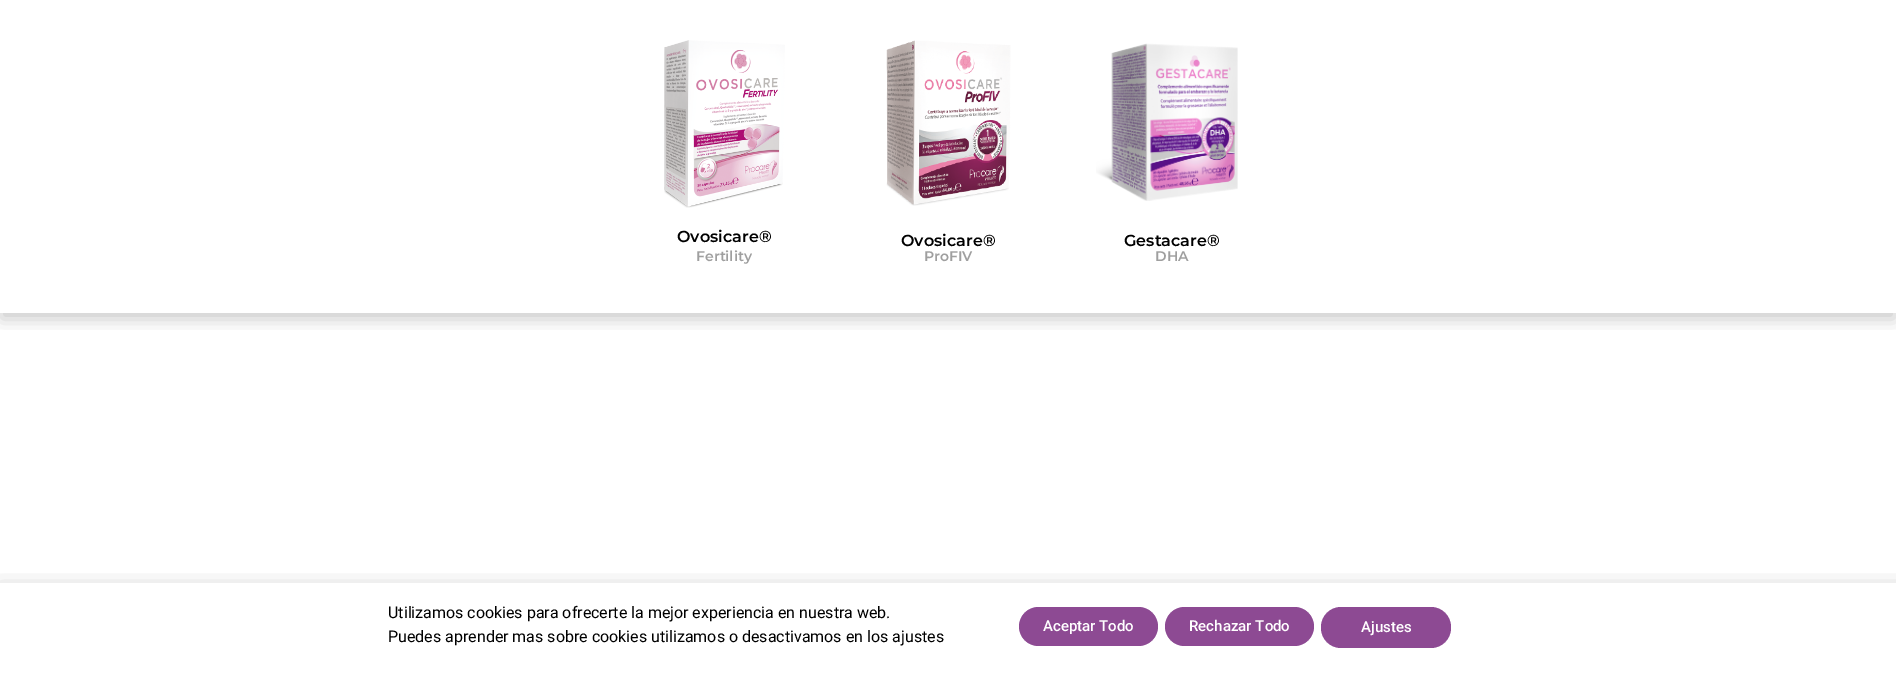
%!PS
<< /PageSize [1896 673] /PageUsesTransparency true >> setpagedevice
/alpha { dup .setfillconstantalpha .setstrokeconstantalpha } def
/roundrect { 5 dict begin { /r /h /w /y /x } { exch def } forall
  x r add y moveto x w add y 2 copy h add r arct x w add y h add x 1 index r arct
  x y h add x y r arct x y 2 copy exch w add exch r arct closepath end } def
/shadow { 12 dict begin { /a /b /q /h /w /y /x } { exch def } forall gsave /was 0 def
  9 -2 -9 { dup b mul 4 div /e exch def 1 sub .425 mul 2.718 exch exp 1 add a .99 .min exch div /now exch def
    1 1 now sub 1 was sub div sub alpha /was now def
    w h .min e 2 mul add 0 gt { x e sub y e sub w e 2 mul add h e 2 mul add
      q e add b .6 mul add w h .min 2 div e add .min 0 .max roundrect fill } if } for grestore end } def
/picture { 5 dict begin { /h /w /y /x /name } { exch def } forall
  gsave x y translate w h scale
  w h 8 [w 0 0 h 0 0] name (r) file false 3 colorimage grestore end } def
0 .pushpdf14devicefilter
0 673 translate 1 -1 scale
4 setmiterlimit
1 setgray
0 0 1896 673 rectfill
gsave
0 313 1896 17 rectclip
0 setgray
1 8 1894 311 0 8.5 0.21 shadow
grestore
(img1.rgb) 664 40 121 168 picture
/Montserrat-SemiBold [16 0 0 -16 0 0] selectfont
0 setgray
677 242 moveto (Ovosicare®) show
/Montserrat-SemiBold [14 0 0 -14 0 0] selectfont
0.624 setgray
696 261 moveto (Fertility) show
(img2.rgb) 886 40 125 166 picture
/Montserrat-SemiBold [16 0 0 -16 0 0] selectfont
0 setgray
901 246 moveto (Ovosicare®) show
/Montserrat-SemiBold [14 0 0 -14 0 0] selectfont
0.624 setgray
924 261 moveto (ProFIV) show
(img3.rgb) 1096 43 142 158 picture
/Montserrat-SemiBold [16 0 0 -16 0 0] selectfont
0 setgray
1124 246 moveto (Gestacare®) show
/Montserrat-SemiBold [14 0 0 -14 0 0] selectfont
0.624 setgray
1155 261 moveto (DHA) show
gsave
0 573 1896 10 rectclip
0 setgray
-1 588 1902 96 0 11.5 0.2 shadow
grestore
/Roboto-Regular [16 0 0 -16 0 0] selectfont
0 setgray
388 618 moveto (Utilizamos cookies para ofrecerte la mejor experiencia en nuestra web.) show
388 642 moveto (Puedes aprender mas sobre cookies utilizamos o desactivamos en los ajustes) show
0.553 0.29 0.576 setrgbcolor
1019 607 139 39 19.5 roundrect fill
/Roboto-Medium [15 0 0 -15 0 0] selectfont
1 setgray
1043 631 moveto (Aceptar Todo) show
0.553 0.29 0.576 setrgbcolor
1165 607 149 39 19.5 roundrect fill
1 setgray
1189 631 moveto (Rechazar Todo) show
0.553 0.29 0.576 setrgbcolor
1321 607 130 41 20 roundrect fill
1 setgray
1361 632 moveto (Ajustes) show
.poppdf14devicefilter showpage
